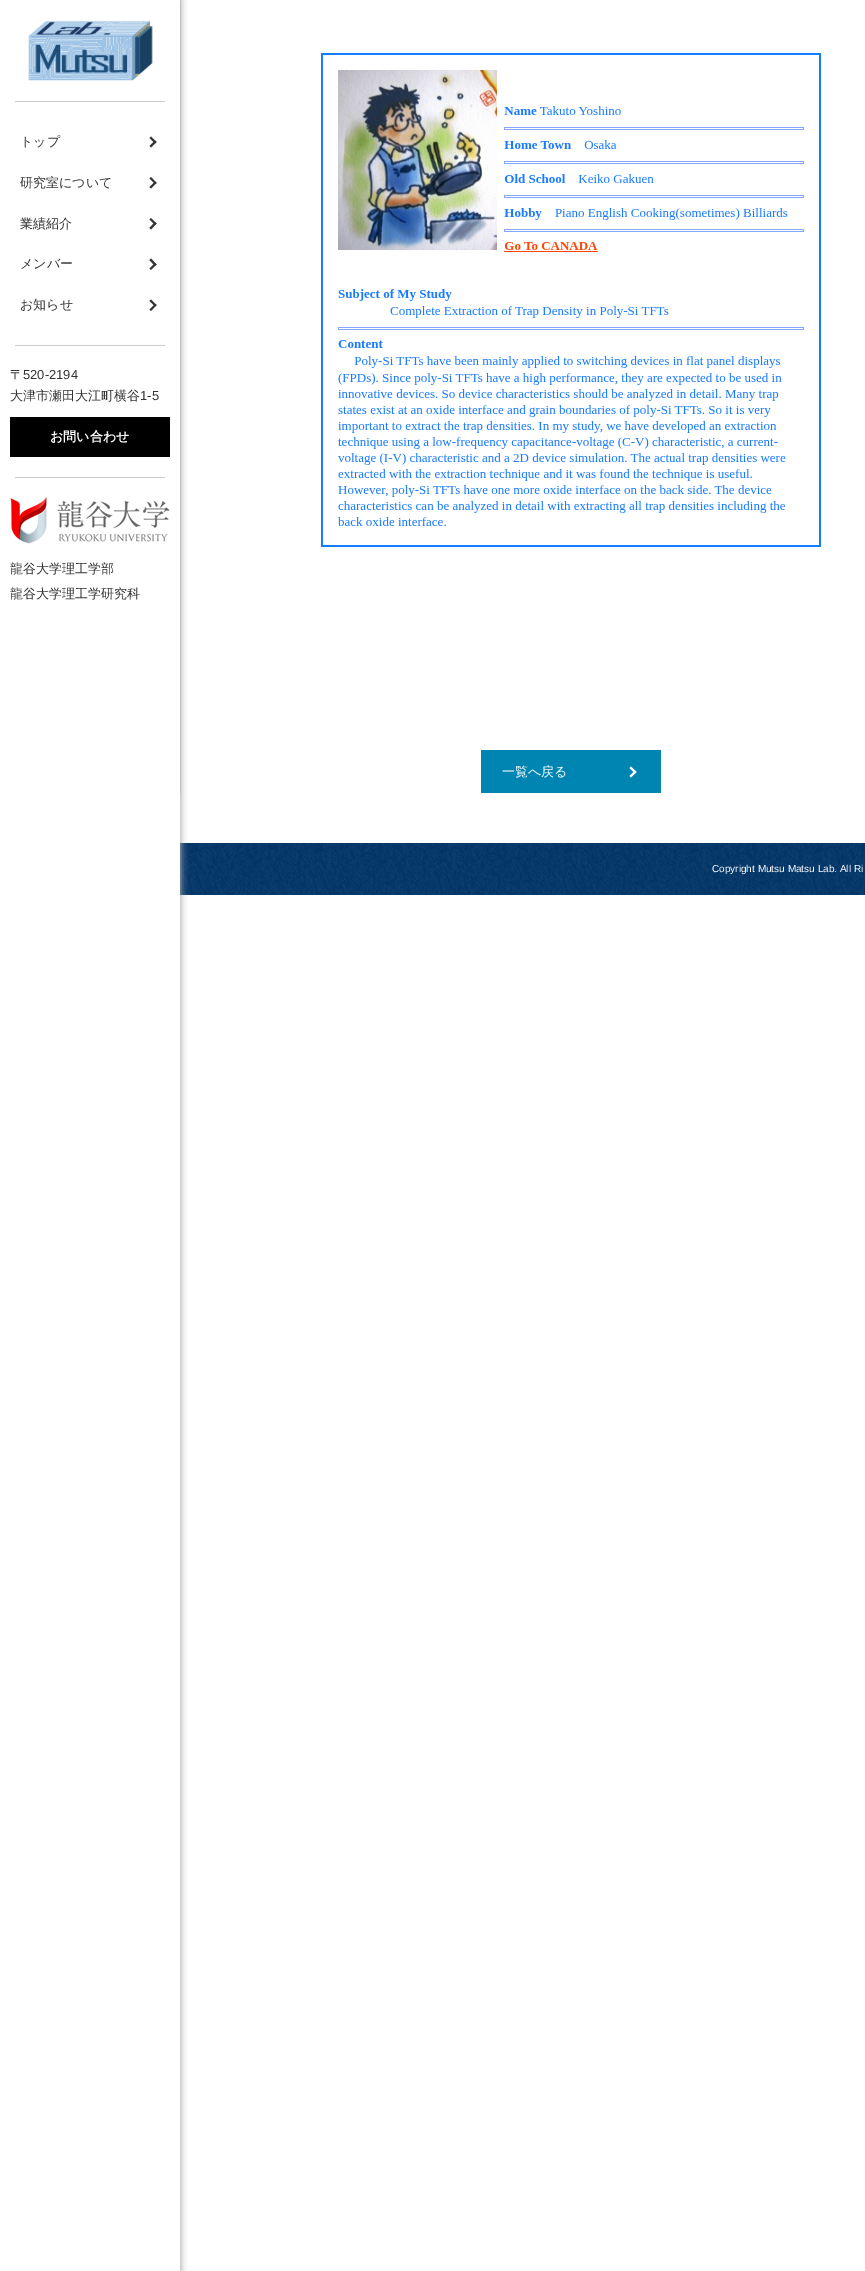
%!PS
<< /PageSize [865 2271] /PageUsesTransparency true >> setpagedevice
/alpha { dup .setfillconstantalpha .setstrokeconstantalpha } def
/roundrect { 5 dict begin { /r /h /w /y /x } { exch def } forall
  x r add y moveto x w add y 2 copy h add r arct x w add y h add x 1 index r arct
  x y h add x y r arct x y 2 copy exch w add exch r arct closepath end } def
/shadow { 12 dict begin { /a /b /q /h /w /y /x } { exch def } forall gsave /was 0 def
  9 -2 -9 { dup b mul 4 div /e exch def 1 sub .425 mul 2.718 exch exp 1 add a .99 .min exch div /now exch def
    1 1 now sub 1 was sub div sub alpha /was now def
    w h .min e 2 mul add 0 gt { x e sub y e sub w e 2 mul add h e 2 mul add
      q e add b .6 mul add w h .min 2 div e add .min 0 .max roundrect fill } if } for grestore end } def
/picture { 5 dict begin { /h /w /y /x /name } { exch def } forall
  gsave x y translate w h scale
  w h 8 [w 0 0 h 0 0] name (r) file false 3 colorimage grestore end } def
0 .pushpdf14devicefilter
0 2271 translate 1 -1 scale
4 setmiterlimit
1 setgray
0 0 865 2271 rectfill
0.867 setgray
180 0 1 793 rectfill
(img4.rgb) 180 843 685 52 picture
gsave
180 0 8 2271 rectclip
0.667 setgray
1 0 180 2271 0 3.5 1 shadow
grestore
(img1.rgb) 28 20 125 61 picture
0.8 setgray
15 101 150 1 rectfill
/WenQuanYiZenHei-Medium [13 0 0 -13 0 0] selectfont
0.2 setgray
20 146 moveto (トップ) show
newpath 151 136.5 moveto 156.5 142 lineto 155 143.5 lineto 149.5 138 lineto closepath fill
newpath 155 140.5 moveto 156.5 142 lineto 151 147.5 lineto 149.5 146 lineto closepath fill
20 187 moveto (研究室について) show
newpath 151 177 moveto 156.5 183 lineto 155 184 lineto 149.5 178.5 lineto closepath fill
newpath 155 181.5 moveto 156.5 183 lineto 151 188.5 lineto 149.5 187 lineto closepath fill
20 228 moveto (業績紹介) show
newpath 151 218 moveto 156.5 223.5 lineto 155 225 lineto 149.5 219.5 lineto closepath fill
newpath 155 222 moveto 156.5 223.5 lineto 151 229.5 lineto 149.5 228 lineto closepath fill
20 268 moveto (メンバー) show
newpath 151 258.5 moveto 156.5 264.5 lineto 155 266 lineto 149.5 260 lineto closepath fill
newpath 155 263 moveto 156.5 264.5 lineto 151 270 lineto 149.5 268.5 lineto closepath fill
20 309 moveto (お知らせ) show
newpath 151 299.5 moveto 156.5 305 lineto 155 306.5 lineto 149.5 301 lineto closepath fill
newpath 155 304 moveto 156.5 305 lineto 151 311 lineto 149.5 309.5 lineto closepath fill
0.8 setgray
15 345 150 1 rectfill
0.2 setgray
10 379 moveto (〒) show
/LiberationSans-Regular [13 0 0 -13 0 0] selectfont
23 379 moveto (520-2194) show
/WenQuanYiZenHei-Medium [13 0 0 -13 0 0] selectfont
10 400 moveto (大津市瀬田大江町横谷) show
/LiberationSans-Regular [13 0 0 -13 0 0] selectfont
140 400 moveto (1-5) show
0 setgray
10 417 160 40 rectfill
/WenQuanYiZenHei-Bold [13 0 0 -13 0 0] selectfont
1 setgray
50 441 moveto (お問い合わせ) show
0.8 setgray
15 477 150 1 rectfill
(img2.rgb) 10 497 160 47 picture
/WenQuanYiZenHei-Medium [13 0 0 -13 0 0] selectfont
0.2 setgray
10 573 moveto (龍谷大学理工学部) show
10 598 moveto (龍谷大学理工学研究科) show
(img3.rgb) 321 53 500 494 picture
0 0.522 0.698 setrgbcolor
481 750 180 43 rectfill
1 setgray
502 776 moveto (一覧へ戻る) show
newpath 631 766.5 moveto 636.5 772 lineto 635 773.5 lineto 629.5 768 lineto closepath fill
newpath 635 770.5 moveto 636.5 772 lineto 631 777.5 lineto 629.5 776 lineto closepath fill
/LiberationSans-Regular [10 0 0 -10 0 0] selectfont
712 872 moveto (Copyright Mutsu Matsu Lab. All Ri) show
.poppdf14devicefilter showpage
